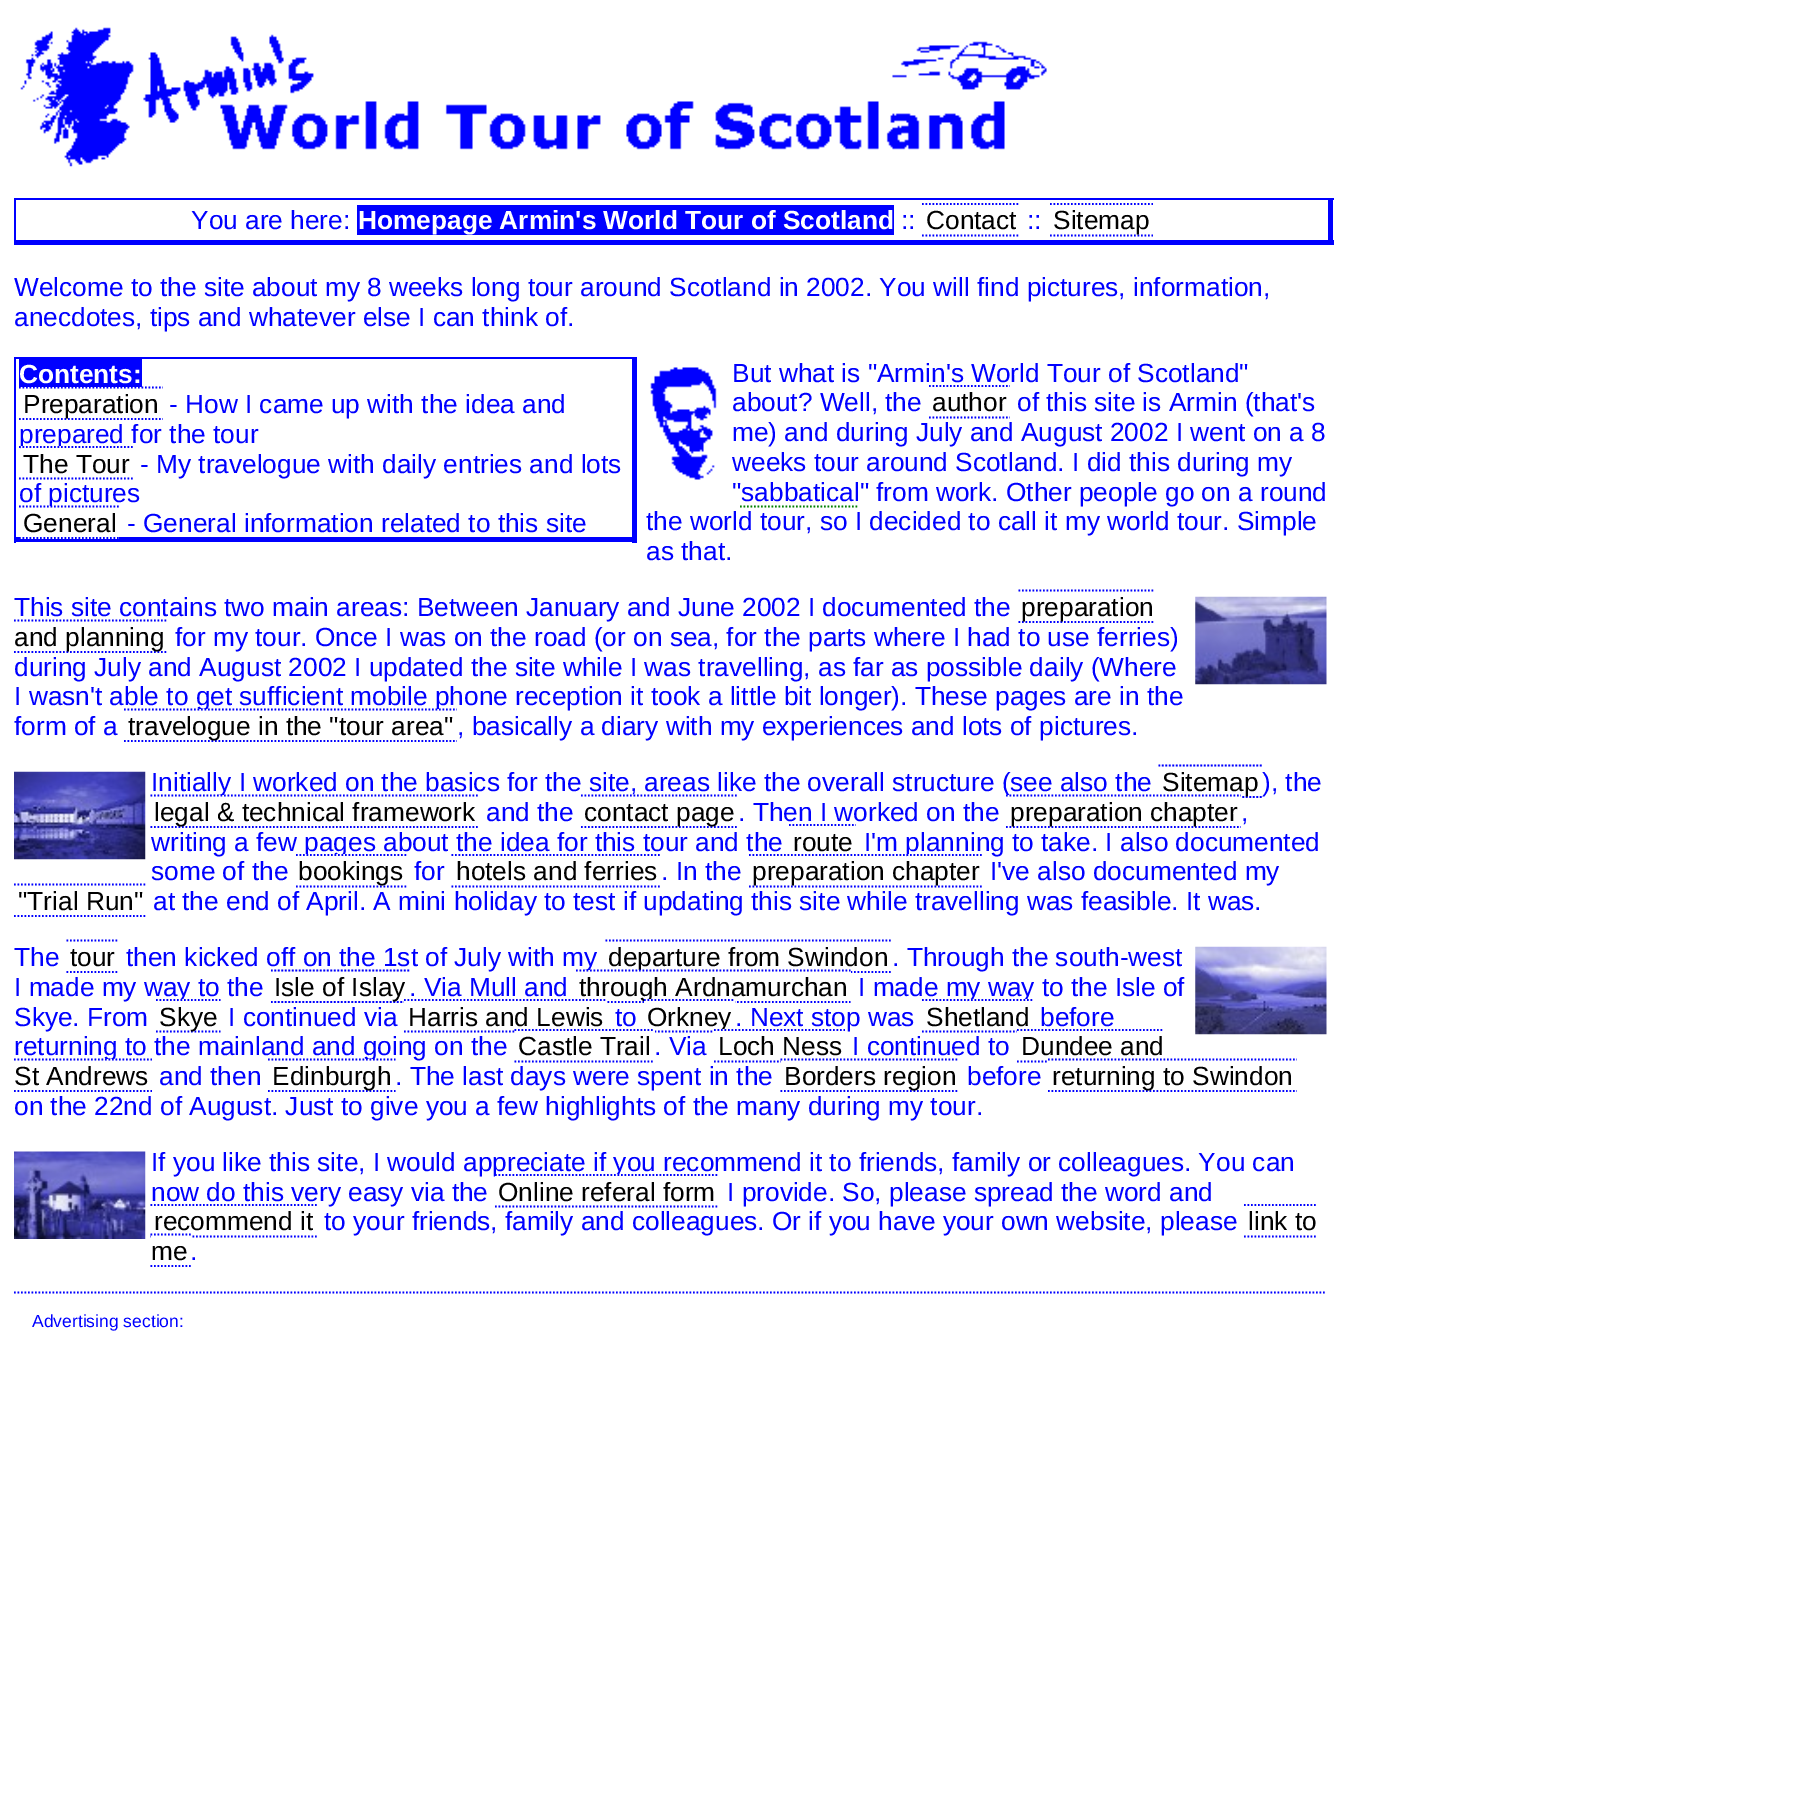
%!PS
<< /PageSize [1819 1813] >> setpagedevice
/picture { 5 dict begin { /h /w /y /x /name } { exch def } forall
  gsave x y translate w h scale
  w h 8 [w 0 0 h 0 0] name (r) file false 3 colorimage grestore end } def
0 1813 translate 1 -1 scale
4 setmiterlimit
1 setgray
0 0 1819 1813 rectfill
(img1.rgb) 20 27 1027 140 picture
0 0 1 setrgbcolor
14 198 1320 2 rectfill
1328 198 5 47 rectfill
14 240 1320 5 rectfill
14 198 2 47 rectfill
/LiberationSans-Regular [26.25 0 0 -26.25 0 0] selectfont
191 229 moveto (You are here:) show
357 205 537 30 rectfill
/LiberationSans-Bold [26.25 0 0 -26.25 0 0] selectfont
1 setgray
358 229 moveto (Homepage Armin's World Tour of Scotland) show
/LiberationSans-Regular [26.25 0 0 -26.25 0 0] selectfont
0 0 1 setrgbcolor
901 229 moveto (::) show
0 setgray
926 229 moveto (Contact) show
0 0 1 setrgbcolor
1.8 setlinewidth
[1.75 1.75] 0 setdash
newpath 922 204 moveto 1020 204 lineto stroke
newpath 922 235.5 moveto 1020 235.5 lineto stroke
1027 229 moveto (::) show
newpath 1050 235.5 moveto 1153 235.5 lineto stroke
0 setgray
1053 229 moveto (Sitemap) show
0 0 1 setrgbcolor
newpath 1050 204 moveto 1153 204 lineto stroke
14 296 moveto (Welcome to the site about my 8 weeks long tour around Scotland in 2002. You will find pictures, information,) show
14 326 moveto (anecdotes, tips and whatever else I can think of.) show
14 357 623 2 rectfill
632 357 5 186 rectfill
14 537 623 5 rectfill
14 357 2 186 rectfill
19 359 123 28 rectfill
/LiberationSans-Bold [26.25 0 0 -26.25 0 0] selectfont
1 setgray
19 383 moveto (Contents:) show
0 0 1 setrgbcolor
newpath 19 419 moveto 163 419 lineto stroke
/LiberationSans-Regular [26.25 0 0 -26.25 0 0] selectfont
0 setgray
23 413 moveto (Preparation) show
0 0 1 setrgbcolor
newpath 19 387.5 moveto 163 387.5 lineto stroke
169 413 moveto (- How I came up with the idea and) show
19 443 moveto (prepared for the tour) show
0 setgray
23 473 moveto (The Tour) show
1 setgray
21 446 41 3 rectfill
0 0 1 setrgbcolor
newpath 19 447 moveto 133 447 lineto stroke
newpath 19 478.5 moveto 133 478.5 lineto stroke
140 473 moveto (- My travelogue with daily entries and lots) show
19 502 moveto (of pictures) show
1 setgray
19 506 100 33 rectfill
0 setgray
23 532 moveto (General) show
0 0 1 setrgbcolor
newpath 19 506.5 moveto 119 506.5 lineto stroke
newpath 19 538 moveto 119 538 lineto stroke
127 532 moveto (- General information related to this site) show
(img2.rgb) 650 367 67 113 picture
732 382 moveto (But what is "Armin's World Tour of Scotland") show
732 411 moveto (about? Well, the) show
0 setgray
932 411 moveto (author) show
0 0 1 setrgbcolor
newpath 929 386 moveto 1010 386 lineto stroke
newpath 929 417.5 moveto 1010 417.5 lineto stroke
1017 411 moveto (of this site is Armin \(that's) show
732 441 moveto (me\) and during July and August 2002 I went on a 8) show
732 471 moveto (weeks tour around Scotland. I did this during my) show
732 501 moveto ("sabbatical" from work. Other people go on a round) show
0 0.502 0 setrgbcolor
newpath 740 506.5 moveto 859 506.5 lineto stroke
0 0 1 setrgbcolor
646 530 moveto (the world tour, so I decided to call it my world tour. Simple) show
646 560 moveto (as that.) show
14 616 moveto (This site contains two main areas: Between January and June 2002 I documented the) show
newpath 1018.5 622 moveto 1155 622 lineto stroke
0 setgray
1021 616 moveto (preparation) show
0 0 1 setrgbcolor
newpath 1018.5 590.5 moveto 1155 590.5 lineto stroke
(img3.rgb) 1195 596 132 89 picture
newpath 14 652 moveto 168 652 lineto stroke
0 setgray
14 646 moveto (and planning) show
0 0 1 setrgbcolor
newpath 14 620.5 moveto 168 620.5 lineto stroke
175 646 moveto (for my tour. Once I was on the road \(or on sea, for the parts where I had to use ferries\)) show
14 676 moveto (during July and August 2002 I updated the site while I was travelling, as far as possible daily \(Where) show
14 705 moveto (I wasn't able to get sufficient mobile phone reception it took a little bit longer\). These pages are in the) show
14 735 moveto (form of a) show
newpath 124 741 moveto 457 741 lineto stroke
0 setgray
128 735 moveto (travelogue in the "tour area") show
1 setgray
198 709 241 2 rectfill
0 0 1 setrgbcolor
newpath 124 709.5 moveto 457 709.5 lineto stroke
457 735 moveto (, basically a diary with my experiences and lots of pictures.) show
(img4.rgb) 14 771 132 89 picture
151 791 moveto (Initially I worked on the basics for the site, areas like the overall structure \(see also the) show
newpath 1158.5 797 moveto 1262 797 lineto stroke
0 setgray
1162 791 moveto (Sitemap) show
0 0 1 setrgbcolor
newpath 1158.5 765.5 moveto 1262 765.5 lineto stroke
1262 791 moveto (\), the) show
newpath 150.5 827 moveto 478 827 lineto stroke
0 setgray
154 821 moveto (legal & technical framework) show
1 setgray
218 795 6 2 rectfill
0 0 1 setrgbcolor
newpath 150.5 795.5 moveto 478 795.5 lineto stroke
486 821 moveto (and the) show
newpath 581 827 moveto 738.5 827 lineto stroke
0 setgray
584 821 moveto (contact page) show
0 0 1 setrgbcolor
newpath 581 795.5 moveto 738.5 795.5 lineto stroke
738 821 moveto (. Then I worked on the) show
newpath 1006 827 moveto 1241 827 lineto stroke
0 setgray
1010 821 moveto (preparation chapter) show
1 setgray
1006 795 235 3 rectfill
0 0 1 setrgbcolor
newpath 1006 795.5 moveto 1241 795.5 lineto stroke
1241 821 moveto (,) show
151 851 moveto (writing a few pages about the idea for this tour and the) show
0 setgray
793 851 moveto (route) show
0 0 1 setrgbcolor
newpath 789 825 moveto 856 825 lineto stroke
864 851 moveto (I'm planning to take. I also documented) show
151 880 moveto (some of the) show
newpath 296 886.5 moveto 408 886.5 lineto stroke
0 setgray
298 880 moveto (bookings) show
1 setgray
305 854 40 3 rectfill
0 0 1 setrgbcolor
newpath 296 855 moveto 408 855 lineto stroke
414 880 moveto (for) show
0 setgray
456 880 moveto (hotels and ferries) show
0 0 1 setrgbcolor
newpath 451.5 855 moveto 661.5 855 lineto stroke
newpath 451.5 886.5 moveto 661.5 886.5 lineto stroke
661 880 moveto (. In the) show
newpath 749 886.5 moveto 983.5 886.5 lineto stroke
0 setgray
752 880 moveto (preparation chapter) show
1 setgray
907 854 3 3 rectfill
0 0 1 setrgbcolor
newpath 749 855 moveto 983.5 855 lineto stroke
990 880 moveto (I've also documented my) show
0 setgray
18 910 moveto ("Trial Run") show
0 0 1 setrgbcolor
newpath 14 884.5 moveto 147 884.5 lineto stroke
newpath 14 916 moveto 147 916 lineto stroke
153 910 moveto (at the end of April. A mini holiday to test if updating this site while travelling was feasible. It was.) show
14 966 moveto (The) show
newpath 66.5 940.5 moveto 119 940.5 lineto 66.5 972 moveto 119 972 lineto stroke
0 setgray
70 966 moveto (tour) show
0 0 1 setrgbcolor
126 966 moveto (then kicked off on the 1st of July with my) show
newpath 605.5 972 moveto 892.5 972 lineto stroke
0 setgray
608 966 moveto (departure from Swindon) show
0 0 1 setrgbcolor
newpath 605.5 940.5 moveto 892.5 940.5 lineto stroke
892 966 moveto (. Through the south-west) show
(img5.rgb) 1195 946 132 89 picture
14 996 moveto (I made my way to the) show
newpath 271 1002 moveto 409.5 1002 lineto stroke
0 setgray
274 996 moveto (Isle of Islay) show
0 0 1 setrgbcolor
newpath 271 970.5 moveto 409.5 970.5 lineto stroke
409 996 moveto (. Via Mull and) show
newpath 576 1002 moveto 850.5 1002 lineto stroke
0 setgray
579 996 moveto (through Ardnamurchan) show
1 setgray
585 970 266 3 rectfill
0 0 1 setrgbcolor
newpath 576 970.5 moveto 850.5 970.5 lineto stroke
858 996 moveto (I made my way to the Isle of) show
14 1026 moveto (Skye. From) show
newpath 156 1031.5 moveto 220.5 1031.5 lineto stroke
0 setgray
159 1026 moveto (Skye) show
1 setgray
178 999 6 3 rectfill
0 0 1 setrgbcolor
newpath 156 1000 moveto 220.5 1000 lineto stroke
228 1026 moveto (I continued via) show
0 setgray
408 1026 moveto (Harris and Lewis) show
1 setgray
404 1001 202 2 rectfill
0 0 1 setrgbcolor
newpath 404 1000 moveto 607 1000 lineto stroke
newpath 404 1031.5 moveto 607 1031.5 lineto stroke
615 1026 moveto (to) show
newpath 644 1031.5 moveto 735 1031.5 lineto stroke
0 setgray
647 1026 moveto (Orkney) show
1 setgray
644 999 91 4 rectfill
0 0 1 setrgbcolor
newpath 644 1000 moveto 735 1000 lineto stroke
735 1026 moveto (. Next stop was) show
0 setgray
926 1026 moveto (Shetland) show
1 setgray
968 999 60 3 rectfill
0 0 1 setrgbcolor
newpath 922 1000 moveto 1032.5 1000 lineto stroke
newpath 922 1031.5 moveto 1032.5 1031.5 lineto stroke
1040 1026 moveto (before) show
14 1055 moveto (returning to the mainland and going on the) show
0 setgray
518 1055 moveto (Castle Trail) show
1 setgray
516 1030 139 3 rectfill
0 0 1 setrgbcolor
newpath 514.5 1030 moveto 654.5 1030 lineto stroke
newpath 514.5 1061.5 moveto 654.5 1061.5 lineto stroke
654 1055 moveto (. Via) show
0 setgray
718 1055 moveto (Loch Ness) show
1 setgray
714 1029 20 4 rectfill
0 0 1 setrgbcolor
newpath 714 1030 moveto 845 1030 lineto stroke
newpath 714 1061.5 moveto 845 1061.5 lineto stroke
852 1055 moveto (I continued to) show
0 setgray
1021 1055 moveto (Dundee and) show
1 setgray
1017 1030 16 3 rectfill
0 0 1 setrgbcolor
newpath 1017 1030 moveto 1164 1030 lineto stroke
newpath 1017 1061.5 moveto 1164 1061.5 lineto stroke
0 setgray
14 1085 moveto (St Andrews) show
1 setgray
105 1059 10 2 rectfill
0 0 1 setrgbcolor
newpath 14 1059.5 moveto 152 1059.5 lineto stroke
newpath 14 1091 moveto 152 1091 lineto stroke
159 1085 moveto (and then) show
newpath 268 1091 moveto 395.5 1091 lineto stroke
0 setgray
272 1085 moveto (Edinburgh) show
1 setgray
365 1059 9 2 rectfill
0 0 1 setrgbcolor
newpath 268 1059.5 moveto 395.5 1059.5 lineto stroke
395 1085 moveto (. The last days were spent in the) show
newpath 780.5 1091 moveto 959 1091 lineto stroke
0 setgray
784 1085 moveto (Borders region) show
1 setgray
781 1060 64 3 rectfill
0 0 1 setrgbcolor
newpath 780.5 1059.5 moveto 959 1059.5 lineto stroke
967 1085 moveto (before) show
newpath 1048 1091 moveto 1297 1091 lineto stroke
0 setgray
1052 1085 moveto (returning to Swindon) show
1 setgray
1048 1060 115 3 rectfill
0 0 1 setrgbcolor
newpath 1048 1059.5 moveto 1297 1059.5 lineto stroke
14 1115 moveto (on the 22nd of August. Just to give you a few highlights of the many during my tour.) show
(img6.rgb) 14 1151 132 88 picture
151 1171 moveto (If you like this site, I would appreciate if you recommend it to friends, family or colleagues. You can) show
151 1201 moveto (now do this very easy via the) show
0 setgray
498 1201 moveto (Online referal form) show
1 setgray
495 1174 125 3 rectfill
0 0 1 setrgbcolor
newpath 495 1175 moveto 719 1175 lineto stroke
newpath 495 1206.5 moveto 719 1206.5 lineto stroke
727 1201 moveto (I provide. So, please spread the word and) show
0 setgray
154 1230 moveto (recommend it) show
0 0 1 setrgbcolor
newpath 150.5 1205 moveto 317 1205 lineto stroke
newpath 150.5 1236.5 moveto 317 1236.5 lineto stroke
324 1230 moveto (to your friends, family and colleagues. Or if you have your own website, please) show
0 setgray
1248 1230 moveto (link to) show
0 0 1 setrgbcolor
newpath 1244 1205 moveto 1316 1205 lineto stroke
newpath 1244 1236.5 moveto 1316 1236.5 lineto stroke
1 setgray
151 1235 40 3 rectfill
0 0 1 setrgbcolor
newpath 150.5 1234.5 moveto 191 1234.5 lineto 150.5 1266 moveto 191 1266 lineto stroke
0 setgray
151 1260 moveto (me) show
0 0 1 setrgbcolor
190 1260 moveto (.) show
newpath 14 1292.5 moveto 1326.5 1292.5 lineto stroke
/LiberationSans-Regular [17.5 0 0 -17.5 0 0] selectfont
32 1327 moveto (Advertising section:) show
showpage
